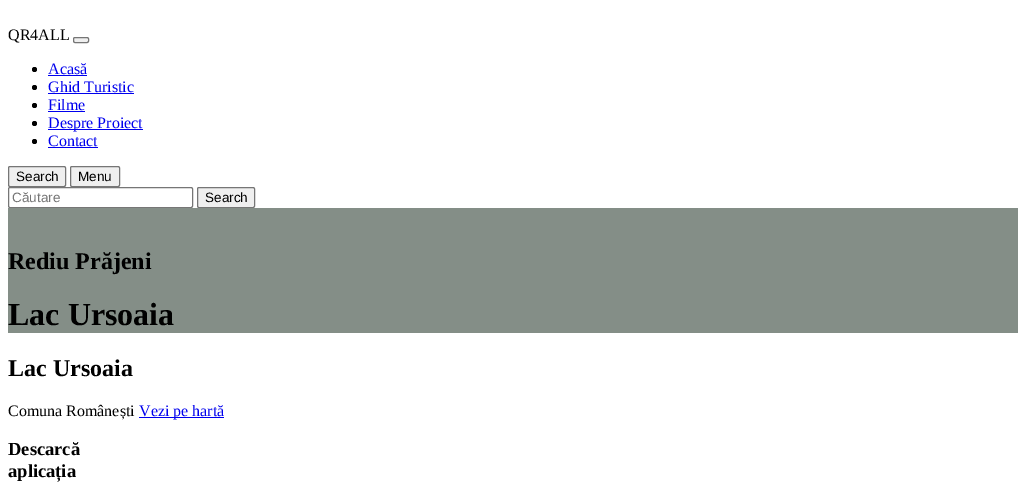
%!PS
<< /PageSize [1026 483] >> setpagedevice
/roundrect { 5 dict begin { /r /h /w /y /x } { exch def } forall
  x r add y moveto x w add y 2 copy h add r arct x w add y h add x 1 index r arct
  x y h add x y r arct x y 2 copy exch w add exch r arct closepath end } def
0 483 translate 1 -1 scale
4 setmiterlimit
1 setgray
0 0 1026 483 rectfill
/LiberationSerif-Regular [16 0 0 -16 0 0] selectfont
0 setgray
8 40 moveto (QR4ALL) show
0.937 setgray
73.5 37.5 15 5 1.5 roundrect gsave fill grestore
0.463 setgray
stroke
0 setgray
newpath 34.5 69.5 2.5 0 360 arc closepath fill
0 0 0.933 setrgbcolor
48 74 moveto (Acasă) show
48 75 39 1 rectfill
0 setgray
newpath 34.5 87.5 2.5 0 360 arc closepath fill
0 0 0.933 setrgbcolor
48 92 moveto (Ghid Turistic) show
48 93 86 1 rectfill
0 setgray
newpath 34.5 105.5 2.5 0 360 arc closepath fill
0 0 0.933 setrgbcolor
48 110 moveto (Filme) show
48 111 37 1 rectfill
0 setgray
newpath 34.5 123.5 2.5 0 360 arc closepath fill
0 0 0.933 setrgbcolor
48 129 95 1 rectfill
48 128 moveto (Despre Proiect) show
0 setgray
newpath 34.5 141.5 2.5 0 360 arc closepath fill
0 0 0.933 setrgbcolor
48 146 moveto (Contact) show
48 147 50 1 rectfill
0.937 setgray
8.5 166.5 57 20 1.5 roundrect gsave fill grestore
0.463 setgray
stroke
/LiberationSans-Regular [13.5 0 0 -13.5 0 0] selectfont
0 setgray
16 181 moveto (Search) show
0.937 setgray
70.5 166.5 49 20 1.5 roundrect gsave fill grestore
0.463 setgray
stroke
0 setgray
78 181 moveto (Menu) show
0.463 setgray
8.5 187.5 184 20 1.5 roundrect stroke
0.459 setgray
12 202 moveto (Căutare) show
0.937 setgray
197.5 187.5 57 20 1.5 roundrect gsave fill grestore
0.463 setgray
stroke
0 setgray
205 202 moveto (Search) show
0.518 0.557 0.529 setrgbcolor
8 208 1010 125 rectfill
/LiberationSerif-Bold [24 0 0 -24 0 0] selectfont
0 setgray
8 269 moveto (Rediu Prăjeni) show
/LiberationSerif-Bold [32 0 0 -32 0 0] selectfont
8 325 moveto (Lac Ursoaia) show
/LiberationSerif-Bold [24 0 0 -24 0 0] selectfont
8 376 moveto (Lac Ursoaia) show
/LiberationSerif-Regular [16 0 0 -16 0 0] selectfont
8 416 moveto (Comuna Românești) show
0 0 0.933 setrgbcolor
139 417 85 1 rectfill
139 416 moveto (Vezi pe hartă) show
/LiberationSerif-Bold [18.5 0 0 -18.5 0 0] selectfont
0 setgray
8 455 moveto (Descarcă) show
8 477 moveto (aplicația) show
showpage
